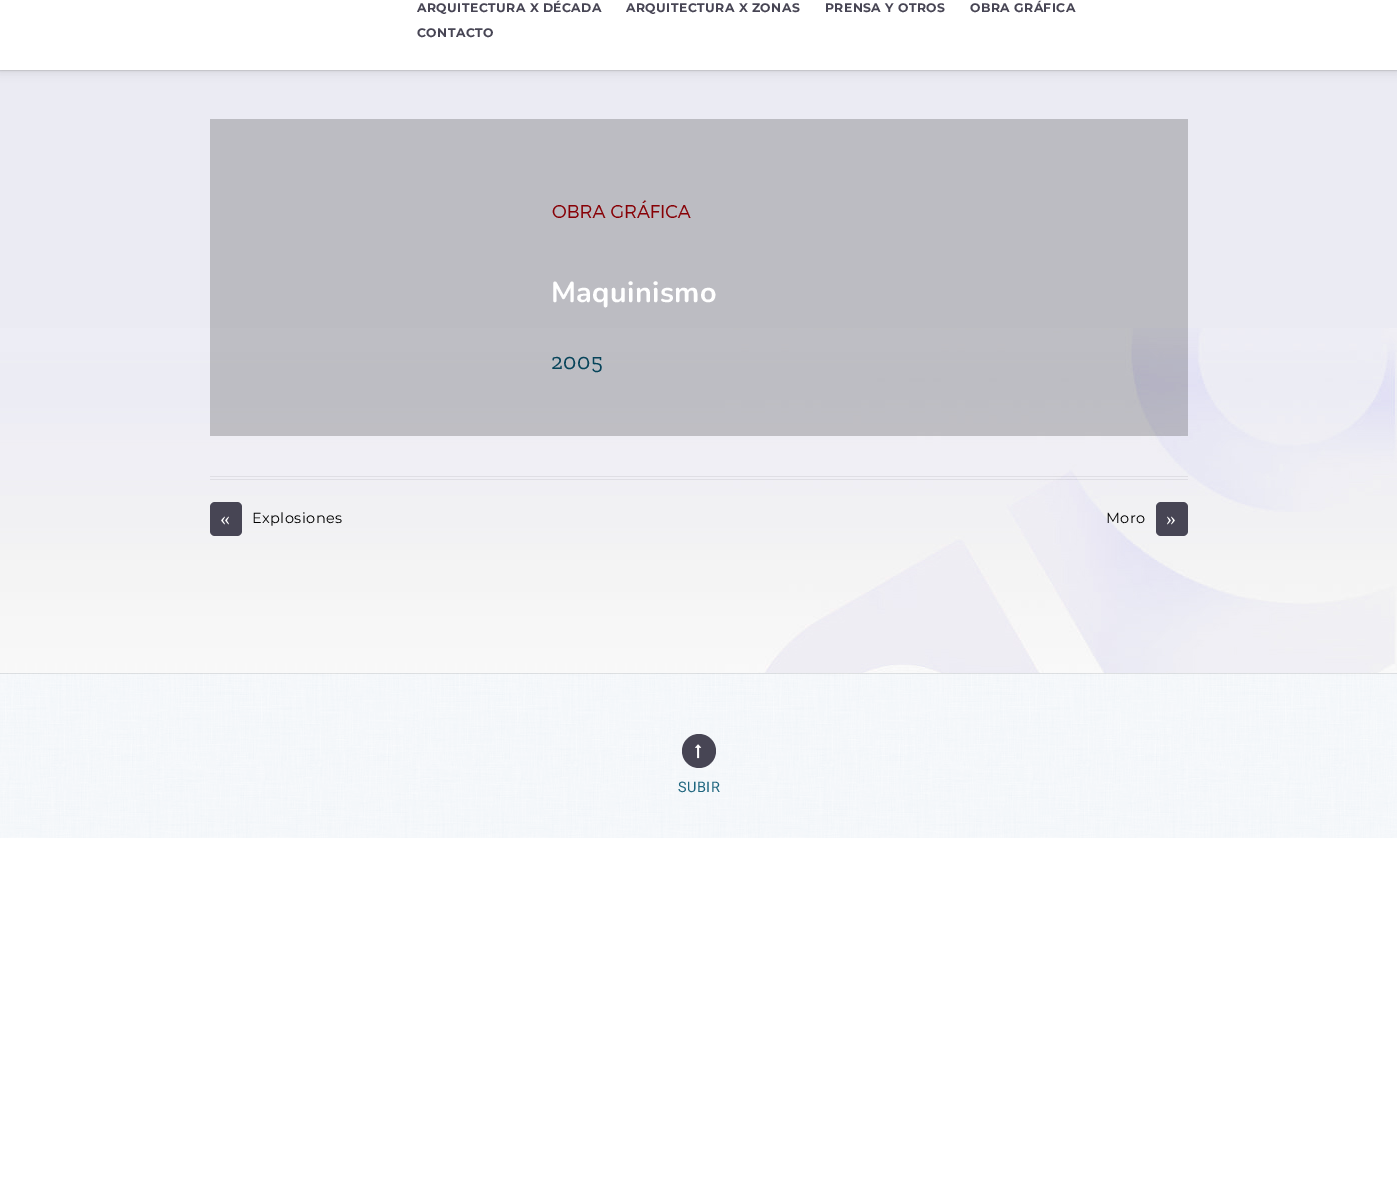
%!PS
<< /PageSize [1397 1204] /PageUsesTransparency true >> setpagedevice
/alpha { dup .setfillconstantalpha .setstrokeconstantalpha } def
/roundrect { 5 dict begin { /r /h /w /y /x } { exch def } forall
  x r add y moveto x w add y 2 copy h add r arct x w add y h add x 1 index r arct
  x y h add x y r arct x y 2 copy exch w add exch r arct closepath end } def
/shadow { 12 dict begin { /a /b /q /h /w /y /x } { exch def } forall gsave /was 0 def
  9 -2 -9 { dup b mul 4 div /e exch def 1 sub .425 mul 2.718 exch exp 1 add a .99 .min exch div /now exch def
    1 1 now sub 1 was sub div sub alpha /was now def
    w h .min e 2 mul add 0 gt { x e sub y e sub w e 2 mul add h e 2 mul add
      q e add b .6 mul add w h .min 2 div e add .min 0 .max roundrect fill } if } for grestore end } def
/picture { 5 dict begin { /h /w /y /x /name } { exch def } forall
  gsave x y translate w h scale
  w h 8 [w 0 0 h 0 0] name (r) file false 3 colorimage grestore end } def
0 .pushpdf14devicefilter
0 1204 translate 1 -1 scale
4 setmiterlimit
1 setgray
0 0 1397 1204 rectfill
0.922 0.922 0.953 setrgbcolor
0 70 1397 258 rectfill
(img1.rgb) 0 328 1397 345 picture
0 setgray
0 2 1397 70 0 5 0.1 shadow
0.1 alpha
-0.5 -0.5 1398 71 rectstroke
1 alpha
1 setgray
0 0 1397 70 rectfill
/Montserrat-Bold [12.4 0 0 -12.4 0 0] selectfont
0.278 0.271 0.329 setrgbcolor
417 12 moveto 0.4 0 (ARQUITECTURA X DÉCADA) ashow
626 12 moveto 0.4 0 (ARQUITECTURA X ZONAS) ashow
825 12 moveto 0.4 0 (PRENSA Y OTROS) ashow
970 12 moveto 0.4 0 (OBRA GRÁFICA) ashow
417 37 moveto 0.4 0 (CONTACTO) ashow
0.2 alpha
0 setgray
210 119 978 317 rectfill
1 alpha
(img2.rgb) 552 200 139 18 picture
/Nunito-Bold [28.75 0 0 -28.75 0 0] selectfont
1 setgray
551 302 moveto 0.4 0 (Maquinismo) ashow
/ZillaSlab-Regular [23 0 0 -23 0 0] selectfont
0.027 0.267 0.353 setrgbcolor
551 369 moveto 0.4 0 (2005) ashow
0.07 alpha
0 setgray
210 476 978 1 rectfill
210 479 978 1 rectfill
1 alpha
0.278 0.271 0.329 setrgbcolor
210 502 32 34 5 roundrect fill
/LiberationSerif-Regular [20 0 0 -20 0 0] selectfont
1 setgray
220 525 moveto 0.4 0 («) ashow
/Montserrat-Regular [14.5 0 0 -14.5 0 0] selectfont
0 setgray
252 523 moveto 0.4 0 (Explosiones) ashow
1106 523 moveto 0.4 0 (Moro) ashow
0.278 0.271 0.329 setrgbcolor
1156 502 32 34 5 roundrect fill
/LiberationSerif-Regular [20 0 0 -20 0 0] selectfont
1 setgray
1166 525 moveto 0.4 0 (») ashow
0.929 0.949 0.969 setrgbcolor
0 673 1397 165 rectfill
(img3.rgb) 0 673 1397 165 picture
0.1 alpha
0 setgray
0 673 1397 1 rectfill
1 alpha
0.278 0.271 0.329 setrgbcolor
newpath 699 751 17 0 360 arc closepath fill
(img4.rgb) 695 744 7 15 picture
/Roboto-Regular [14.5 0 0 -14.5 0 0] selectfont
0.122 0.4 0.498 setrgbcolor
678 792 moveto 0.4 0 (SUBIR) ashow
.poppdf14devicefilter showpage
